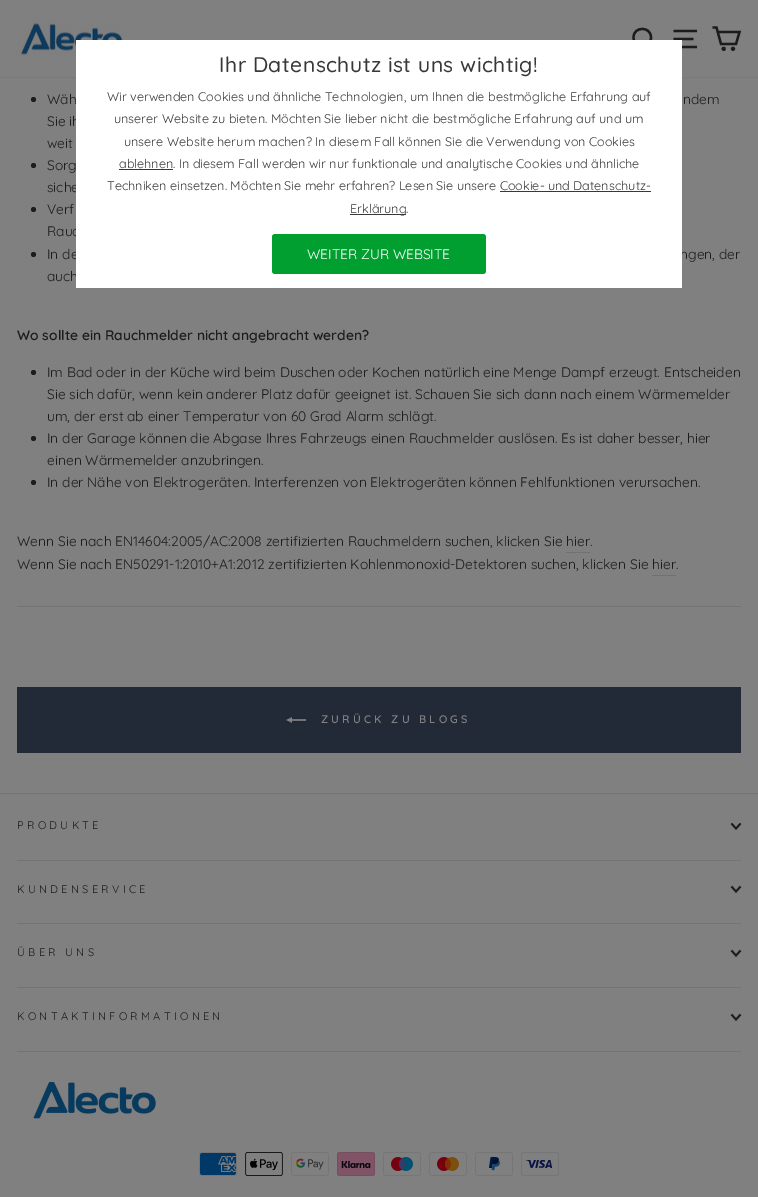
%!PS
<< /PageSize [758 1197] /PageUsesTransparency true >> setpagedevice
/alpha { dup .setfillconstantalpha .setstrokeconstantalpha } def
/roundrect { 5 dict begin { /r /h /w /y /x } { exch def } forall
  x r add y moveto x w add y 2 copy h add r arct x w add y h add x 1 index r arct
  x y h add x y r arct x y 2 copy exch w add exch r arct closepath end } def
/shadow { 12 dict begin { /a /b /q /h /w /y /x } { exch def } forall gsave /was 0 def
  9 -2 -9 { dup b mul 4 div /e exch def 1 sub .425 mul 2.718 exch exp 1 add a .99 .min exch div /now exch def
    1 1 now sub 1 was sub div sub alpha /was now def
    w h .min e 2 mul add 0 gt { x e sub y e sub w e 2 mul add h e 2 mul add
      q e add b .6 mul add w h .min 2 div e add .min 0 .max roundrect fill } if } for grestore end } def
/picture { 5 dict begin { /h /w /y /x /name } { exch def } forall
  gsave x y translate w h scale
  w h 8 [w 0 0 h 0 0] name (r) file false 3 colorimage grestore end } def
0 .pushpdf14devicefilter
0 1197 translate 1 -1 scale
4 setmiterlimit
0.502 setgray
0 0 758 1197 rectfill
0 setgray
0 0 758 77 0 0.5 0.2 shadow
0.502 setgray
0 0 758 77 rectfill
(img1.rgb) 17 18 110 39 picture
0.11 setgray
2.3 setlinewidth
newpath 651 37.5 moveto 651 49 633.5 49 633.5 37.5 curveto 633.5 26 651 26 651 37.5 curveto closepath 654.5 49.5 moveto 648.5 43.5 lineto stroke
newpath 673.5 31 moveto 697 31 lineto 673.5 39 moveto 693.5 39 lineto 673.5 47 moveto 697 47 lineto stroke
/Quicksand-Regular [13.8 0 0 -13.8 0 0] selectfont
47 126 moveto (Sie ih) show
47 192 moveto (siche) show
47 236 moveto (Rauc) show
47 259 moveto (In de) show
680 259 moveto (ngen, der) show
47 281 moveto (auch) show
1 setgray
76 40 606 248 rectfill
/Quicksand-Medium [21.1 0 0 -21.1 0 0] selectfont
0.22 setgray
219 72 moveto 0.5 0 (Ihr Datenschutz ist uns wichtig!) ashow
/Quicksand-Regular [12.6 0 0 -12.6 0 0] selectfont
107 101 moveto (Wir verwenden Cookies und ähnliche Technologien, um Ihnen die bestmögliche Erfahrung auf) show
114 123 moveto (unserer Website zu bieten. Möchten Sie lieber nicht die bestmögliche Erfahrung auf und um) show
124 146 moveto (unsere Website herum machen? In diesem Fall können Sie die Verwendung von Cookies) show
119 169 54 1 rectfill
119 168 moveto (ablehnen. In diesem Fall werden wir nur funktionale und analytische Cookies und ähnliche) show
107 190 moveto (Techniken einsetzen. Möchten Sie mehr erfahren? Lesen Sie unsere Cookie- und Datenschutz-) show
500 191 151 1 rectfill
350 214 56 1 rectfill
350 213 moveto (Erklärung.) show
0 0.624 0.184 setrgbcolor
272 234 214 40 3 roundrect fill
/Quicksand-Regular [13.8 0 0 -13.8 0 0] selectfont
1 setgray
307 259 moveto (WEITER ZUR WEBSITE) show
0.11 setgray
newpath 717.5 32 moveto 739.5 32 lineto 736 44 lineto 721 44 lineto 716.5 27.5 lineto 712.5 27.5 lineto stroke
newpath 723.7 48.8 0.9 0 360 arc closepath stroke
newpath 733 48.8 0.9 0 360 arc closepath stroke
newpath 33.5 99.5 2.5 0 360 arc closepath fill
47 104 moveto (Wäh) show
683 104 moveto (ndem) show
47 148 moveto (weit) show
newpath 33.5 165.5 2.5 0 360 arc closepath fill
47 170 moveto (Sorg) show
newpath 33.5 209.5 2.5 0 360 arc closepath fill
47 214 moveto (Verf) show
newpath 33.5 254.5 2.5 0 360 arc closepath fill
/Quicksand-SemiBold [13.8 0 0 -13.8 0 0] selectfont
17 340 moveto (Wo sollte ein Rauchmelder nicht angebracht werden?) show
newpath 33.5 372.5 2.5 0 360 arc closepath fill
/Quicksand-Regular [13.8 0 0 -13.8 0 0] selectfont
47 377 moveto (Im Bad oder in der Küche wird beim Duschen oder Kochen natürlich eine Menge Dampf erzeugt. Entscheiden) show
47 399 moveto (Sie sich dafür, wenn kein anderer Platz dafür geeignet ist. Schauen Sie sich dann nach einem Wärmemelder) show
47 421 moveto (um, der erst ab einer Temperatur von 60 Grad Alarm schlägt.) show
newpath 33.5 438.5 2.5 0 360 arc closepath fill
47 443 moveto (In der Garage können die Abgase Ihres Fahrzeugs einen Rauchmelder auslösen. Es ist daher besser, hier) show
47 465 moveto (einen Wärmemelder anzubringen.) show
newpath 33.5 482.5 2.5 0 360 arc closepath fill
47 487 moveto (In der Nähe von Elektrogeräten. Interferenzen von Elektrogeräten können Fehlfunktionen verursachen.) show
17 546 moveto (Wenn Sie nach EN14604:2005/AC:2008 zertifizierten Rauchmeldern suchen, klicken Sie hier) show
590 546 moveto (.) show
0.443 setgray
566 552 24 1 rectfill
0.11 setgray
17 569 moveto (Wenn Sie nach EN50291-1:2010+A1:2012 zertifizierten Kohlenmonoxid-Detektoren suchen, klicken Sie hier) show
676 569 moveto (.) show
0.443 setgray
652 575 24 1 rectfill
0.455 0.455 0.443 setrgbcolor
17 606 724 1 rectfill
0.129 0.165 0.212 setrgbcolor
17 687 724 66 rectfill
(img2.rgb) 286 717 20 6 picture
/Quicksand-SemiBold [11 0 0 -11 0 0] selectfont
0.502 setgray
321 723 moveto 3.25 0 (ZURÜCK ZU BLOGS) ashow
0.455 0.455 0.443 setrgbcolor
0 793 758 1 rectfill
/Quicksand-Regular [11 0 0 -11 0 0] selectfont
0.11 setgray
17 829 moveto 3.3 0 (PRODUKTE) ashow
1.8 setlinewidth
newpath 731.5 823.5 moveto 736 828.5 lineto 740.5 823.5 lineto stroke
0.455 setgray
17 860 724 1 rectfill
0.11 setgray
17 893 moveto 3.3 0 (KUNDENSERVICE) ashow
newpath 731.5 886.5 moveto 736 891.5 lineto 740.5 886.5 lineto stroke
0.455 setgray
17 923 724 1 rectfill
0.11 setgray
17 956 moveto 3.3 0 (ÜBER UNS) ashow
newpath 731.5 950.5 moveto 736 955.5 lineto 740.5 950.5 lineto stroke
0.455 setgray
17 987 724 1 rectfill
0.11 setgray
17 1020 moveto 3.3 0 (KONTAKTINFORMATIONEN) ashow
newpath 731.5 1014.5 moveto 736 1019.5 lineto 740.5 1014.5 lineto stroke
0.455 setgray
17 1051 724 1 rectfill
(img3.rgb) 33 1081 123 38 picture
(img4.rgb) 199 1152 38 24 picture
(img5.rgb) 245 1152 38 24 picture
(img6.rgb) 291 1152 38 24 picture
(img7.rgb) 337 1152 38 24 picture
(img8.rgb) 383 1152 38 24 picture
(img9.rgb) 429 1152 38 24 picture
(img10.rgb) 475 1152 38 24 picture
(img11.rgb) 521 1152 38 24 picture
.poppdf14devicefilter showpage
